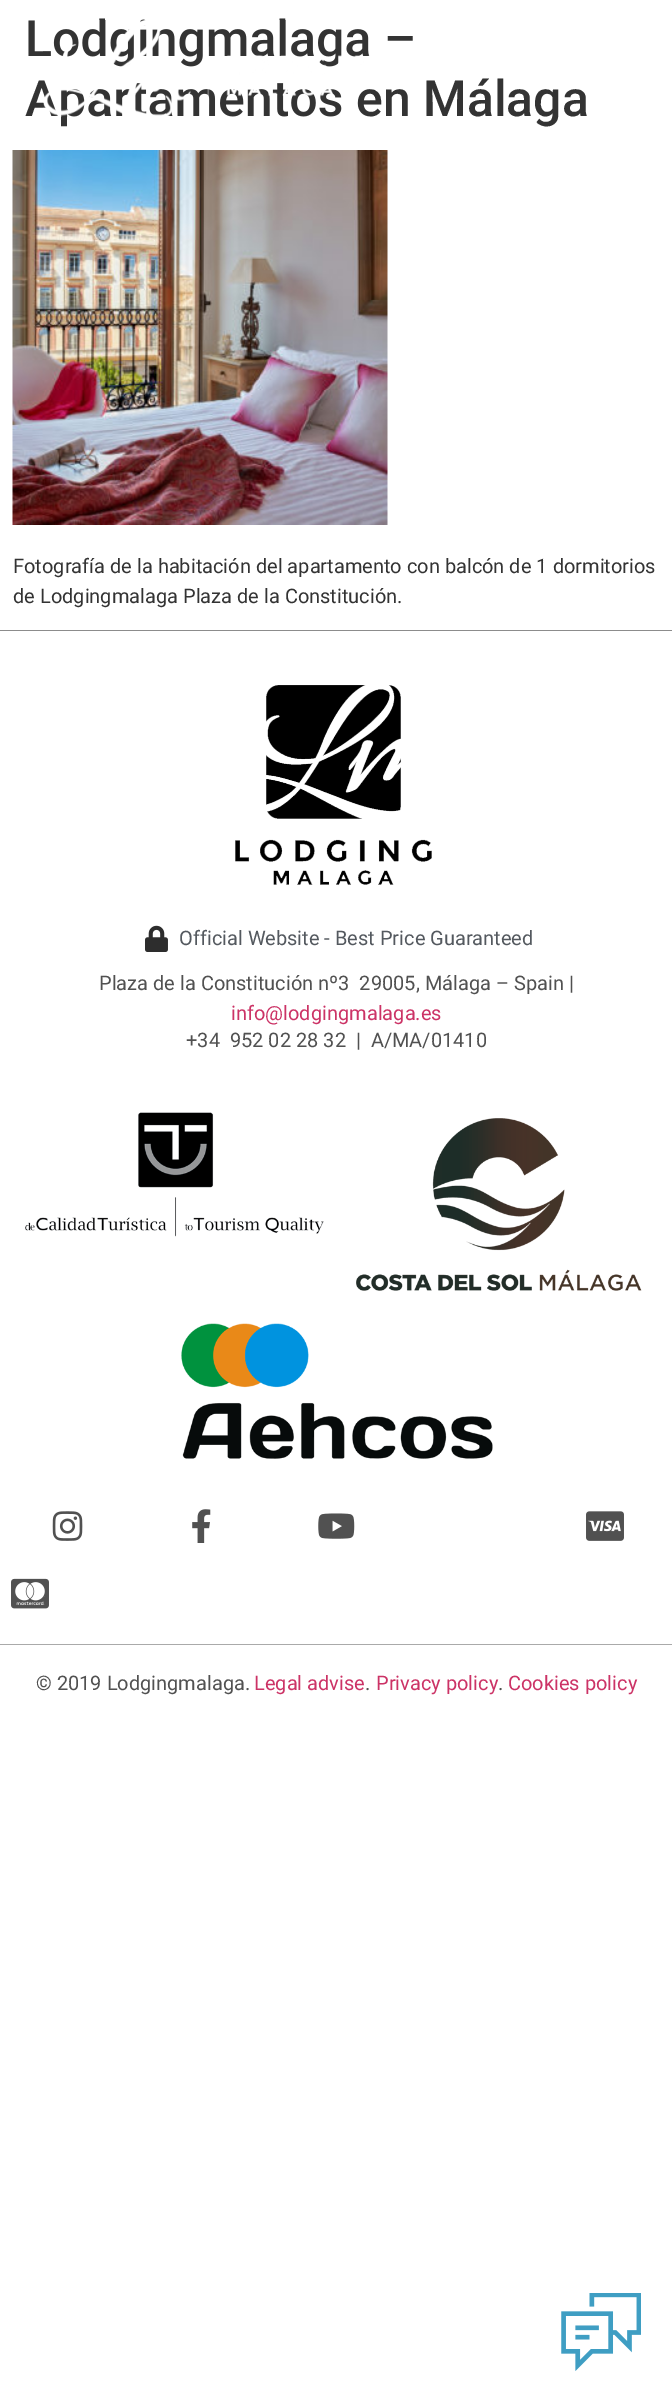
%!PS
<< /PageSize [672 2403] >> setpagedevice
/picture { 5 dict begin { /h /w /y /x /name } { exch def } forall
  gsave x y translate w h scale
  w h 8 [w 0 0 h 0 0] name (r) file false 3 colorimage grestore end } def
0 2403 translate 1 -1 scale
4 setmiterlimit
1 setgray
0 0 672 2403 rectfill
/Roboto-Medium [50 0 0 -50 0 0] selectfont
0.2 setgray
25 56 moveto (Lodgingmalaga –) show
25 116 moveto (Apartamentos en Málaga) show
(img1.rgb) 12 150 376 375 picture
/Roboto-Regular [20 0 0 -20 0 0] selectfont
13 573 moveto (Fotografía de la habitación del apartamento con balcón de 1 dormitorios) show
13 603 moveto (de Lodgingmalaga Plaza de la Constitución.) show
(img2.rgb) 43 20 327 97 picture
0.549 setgray
0 630 672 1 rectfill
(img3.rgb) 235 685 197 200 picture
(img4.rgb) 145 925 23 27 picture
0.329 0.349 0.373 setrgbcolor
179 945 moveto (Official Website - Best Price Guaranteed) show
0.318 setgray
99 990 moveto (Plaza de la Constitución nº3  29005, Málaga – Spain |) show
0.8 0.2 0.4 setrgbcolor
231 1020 moveto (info@lodgingmalaga.es) show
0.318 setgray
186 1047 moveto (+34  952 02 28 32  |  A/MA/01410) show
(img5.rgb) 25 1112 299 125 picture
(img6.rgb) 356 1118 286 173 picture
(img7.rgb) 181 1323 312 136 picture
(img8.rgb) 52 1511 31 30 picture
(img9.rgb) 192 1509 19 34 picture
(img10.rgb) 318 1513 37 26 picture
(img11.rgb) 586 1511 38 30 picture
(img12.rgb) 11 1578 38 31 picture
0.667 setgray
0 1644 672 1 rectfill
0.318 setgray
36 1690 moveto (© 2019 Lodgingmalaga.) show
0.8 0.2 0.4 setrgbcolor
254 1690 moveto (Legal advise) show
0.318 setgray
365 1690 moveto (.) show
0.8 0.2 0.4 setrgbcolor
376 1690 moveto (Privacy policy) show
0.318 setgray
498 1690 moveto (.) show
0.8 0.2 0.4 setrgbcolor
508 1690 moveto (Cookies policy) show
(img13.rgb) 561 2293 80 78 picture
showpage
